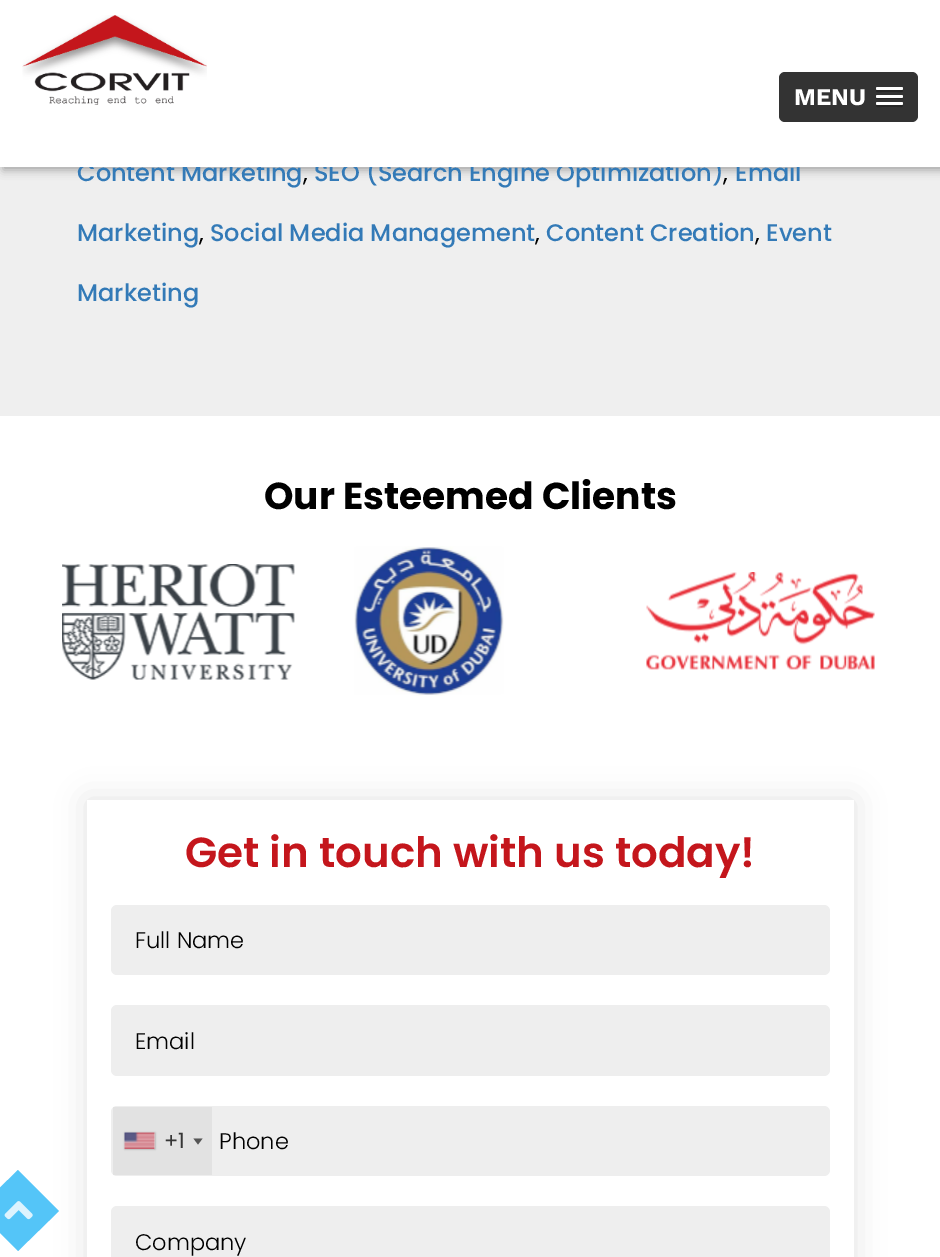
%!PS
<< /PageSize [940 1257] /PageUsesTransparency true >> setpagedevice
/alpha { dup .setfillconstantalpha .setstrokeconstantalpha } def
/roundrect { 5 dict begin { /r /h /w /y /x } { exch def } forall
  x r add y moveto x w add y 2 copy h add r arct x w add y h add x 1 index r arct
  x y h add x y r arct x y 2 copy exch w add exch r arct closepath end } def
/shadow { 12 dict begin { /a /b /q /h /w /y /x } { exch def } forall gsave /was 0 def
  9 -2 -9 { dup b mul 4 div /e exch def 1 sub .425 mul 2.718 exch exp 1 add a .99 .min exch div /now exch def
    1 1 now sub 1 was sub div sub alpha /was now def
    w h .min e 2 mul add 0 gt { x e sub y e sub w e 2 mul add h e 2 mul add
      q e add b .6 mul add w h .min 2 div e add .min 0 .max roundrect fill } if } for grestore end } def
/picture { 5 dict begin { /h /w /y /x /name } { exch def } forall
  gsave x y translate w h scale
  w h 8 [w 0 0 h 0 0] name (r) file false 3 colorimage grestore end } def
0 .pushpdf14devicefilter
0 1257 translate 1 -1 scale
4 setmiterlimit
1 setgray
0 0 940 1257 rectfill
0.937 setgray
0 167 940 249 rectfill
0 setgray
3 3 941 167 0 4.5 0.32 shadow
/Poppins-Medium [24 0 0 -24 0 0] selectfont
0.2 0.478 0.718 setrgbcolor
77 181 moveto (Content Marketing) show
314 181 moveto (SEO \(Search Engine Optimization\)) show
735 181 moveto (Email) show
1 setgray
0 0 940 167 rectfill
(img1.rgb) 22 15 185 90 picture
0.2 setgray
779 72 139 50 6 roundrect fill
/WorkSans-Bold [24 0 0 -24 0 0] selectfont
1 setgray
794 105 moveto (MENU) show
0.149 setgray
newpath 876.5 89.5 moveto 876 91 lineto 876.5 93 881 92 881.5 92 curveto 897.5 92 lineto 898 92 902.5 93 903 91 curveto 902.5 89.5 lineto 901.5 90 lineto 877.5 90 lineto closepath fill
1 setgray
876 87 27 3 1.5 roundrect fill
0.149 setgray
newpath 876 96.5 moveto 874.5 100 881.5 99 881.5 99 curveto 897.5 99 lineto 897.5 99 904.5 100 903 96.5 curveto 902.5 97 902 97.5 901.5 97.5 curveto 877.5 97.5 lineto 877 97.5 876.5 97 876 96.5 curveto closepath fill
1 setgray
876 95 27 3 1.5 roundrect fill
0.149 setgray
newpath 876.5 104.5 moveto 876 106 lineto 876.5 108 881 107 881.5 107 curveto 897.5 107 lineto 898 107 902.5 108 903 106 curveto 902.5 104.5 lineto 901.5 105 lineto 877.5 105 lineto closepath fill
1 setgray
876 102 27 3 1.5 roundrect fill
gsave
newpath 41 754 moveto 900 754 lineto 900 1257 lineto 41 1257 lineto closepath 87 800 moveto 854 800 lineto 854 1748 lineto 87 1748 lineto closepath eoclip newpath
0.706 setgray
87 800 767 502 0 15 0.4 shadow
grestore
0.329 0.773 0.973 setrgbcolor
newpath 18 1170 moveto 59 1211 lineto 18 1251 lineto -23 1210 lineto closepath fill
(img2.rgb) 4 1201 29 19 picture
/Poppins-Regular [24 0 0 -24 0 0] selectfont
0 setgray
303 181 moveto (,) show
723 181 moveto (,) show
/Poppins-Medium [24 0 0 -24 0 0] selectfont
0.2 0.478 0.718 setrgbcolor
77 241 moveto (Marketing) show
/Poppins-Regular [24 0 0 -24 0 0] selectfont
0 setgray
199 241 moveto (,) show
/Poppins-Medium [24 0 0 -24 0 0] selectfont
0.2 0.478 0.718 setrgbcolor
210 241 moveto (Social Media Management) show
/Poppins-Regular [24 0 0 -24 0 0] selectfont
0 setgray
535 241 moveto (,) show
/Poppins-Medium [24 0 0 -24 0 0] selectfont
0.2 0.478 0.718 setrgbcolor
546 241 moveto (Content Creation) show
/Poppins-Regular [24 0 0 -24 0 0] selectfont
0 setgray
755 241 moveto (,) show
/Poppins-Medium [24 0 0 -24 0 0] selectfont
0.2 0.478 0.718 setrgbcolor
766 241 moveto (Event) show
77 301 moveto (Marketing) show
/Poppins-Bold [37.5 0 0 -37.5 0 0] selectfont
0 setgray
264 509 moveto (Our Esteemed Clients) show
(img3.rgb) 62 564 233 116 picture
(img4.rgb) 354 546 150 150 picture
(img5.rgb) 646 572 229 98 picture
/Poppins-SemiBold [42 0 0 -42 0 0] selectfont
0.769 0.086 0.11 setrgbcolor
185 867 moveto (Get in touch with us today!) show
0.933 setgray
111 905 719 70 6 roundrect fill
/Poppins-Light [22.5 0 0 -22.5 0 0] selectfont
0 setgray
135 948 moveto (Full Name) show
0.933 setgray
111 1005 719 71 6 roundrect fill
0 setgray
135 1049 moveto (Email) show
0.933 setgray
111 1106 719 70 6 roundrect fill
0.05 alpha
0 setgray
113 1107 99 68 rectfill
1 alpha
0.533 setgray
125 1133 30 16 0 1 1 shadow
0.859 setgray
154 1133 1 16 rectfill
(img6.rgb) 124 1132 31 17 picture
/Poppins-Regular [21 0 0 -21 0 0] selectfont
0.212 setgray
164 1148 moveto (+1) show
0.333 setgray
newpath 193.5 1138.5 moveto 202.5 1138.5 lineto 198 1144.5 lineto closepath fill
/Poppins-Light [22.5 0 0 -22.5 0 0] selectfont
0 setgray
219 1149 moveto (Phone) show
0.933 setgray
111 1206 719 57 6 roundrect fill
0 setgray
135 1250 moveto (Company) show
.poppdf14devicefilter showpage
